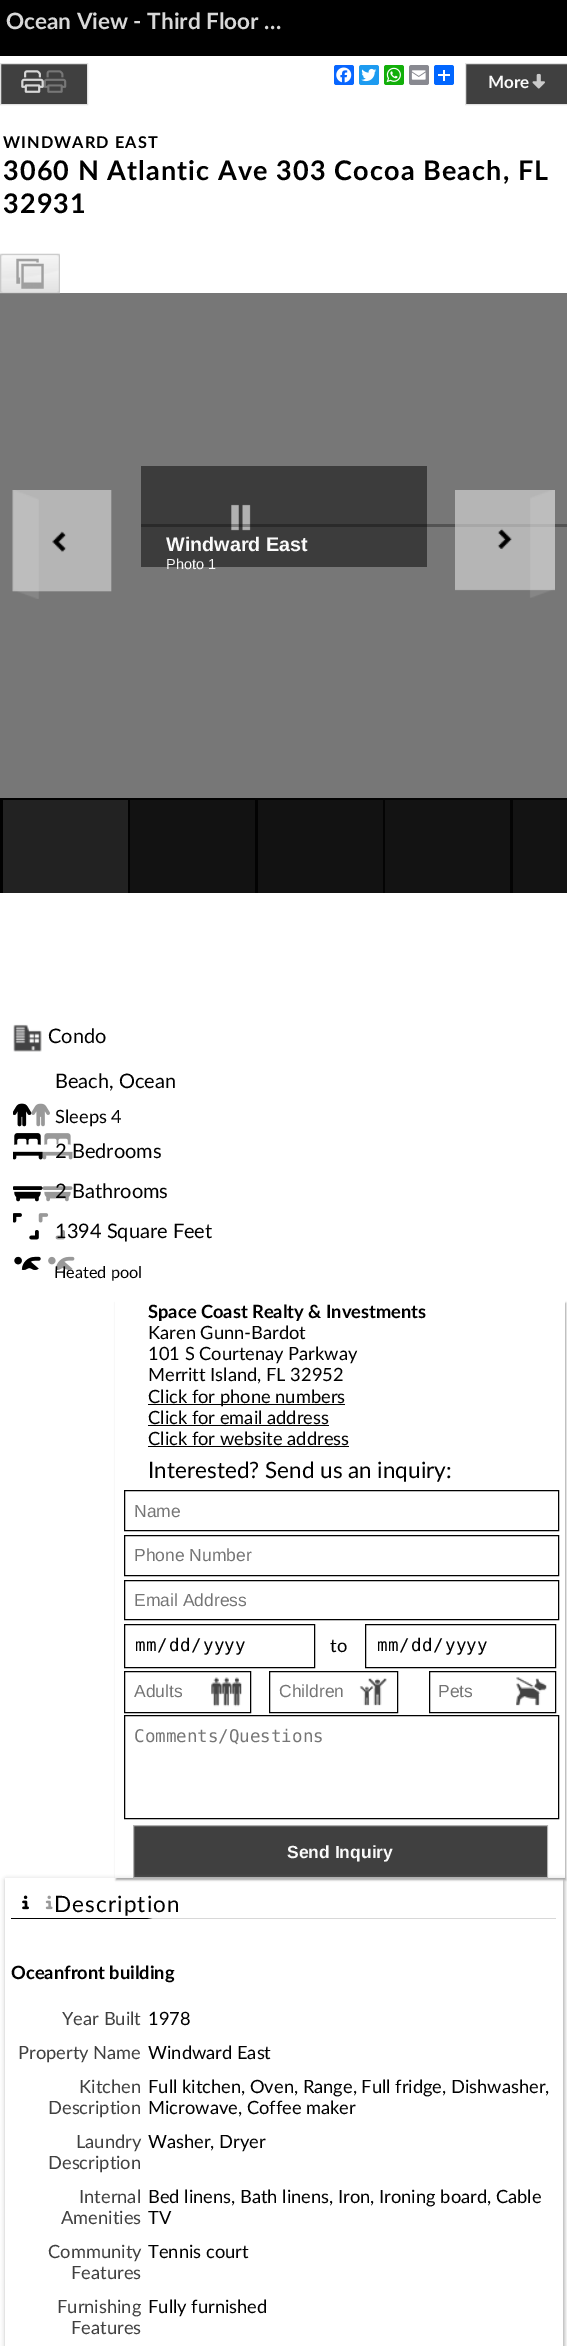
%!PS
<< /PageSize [567 2346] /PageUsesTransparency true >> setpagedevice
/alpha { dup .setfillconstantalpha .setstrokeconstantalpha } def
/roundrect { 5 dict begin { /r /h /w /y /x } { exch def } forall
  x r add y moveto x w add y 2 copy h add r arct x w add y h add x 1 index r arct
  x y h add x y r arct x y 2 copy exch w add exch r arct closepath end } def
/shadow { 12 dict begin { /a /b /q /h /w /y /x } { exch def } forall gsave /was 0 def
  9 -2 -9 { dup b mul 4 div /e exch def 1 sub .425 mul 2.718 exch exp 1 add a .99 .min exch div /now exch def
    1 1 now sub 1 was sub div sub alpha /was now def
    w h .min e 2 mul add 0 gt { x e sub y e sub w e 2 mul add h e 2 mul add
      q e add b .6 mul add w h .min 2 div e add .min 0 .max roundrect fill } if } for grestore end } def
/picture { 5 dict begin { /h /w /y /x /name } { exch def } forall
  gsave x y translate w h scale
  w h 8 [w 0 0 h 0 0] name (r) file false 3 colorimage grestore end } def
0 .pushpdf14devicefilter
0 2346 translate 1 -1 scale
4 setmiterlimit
1 setgray
0 0 567 2346 rectfill
0 setgray
0 0 567 56 rectfill
/Lato-Bold [22.5 0 0 -22.5 0 0] selectfont
0.847 setgray
6 29 moveto (Ocean View - Third Floor …) show
0.251 setgray
newpath 0.5 63.5 moveto 87.5 63.5 lineto 87.5 104.5 lineto 0.5 104.5 lineto closepath gsave fill grestore
0.886 setgray
stroke
(img1.rgb) 21 70 23 23 picture
(img2.rgb) 21 70 46 23 picture
0.031 0.4 1 setrgbcolor
334 65 20 20 2.5 roundrect fill
(img3.rgb) 336 67 16 16 picture
0.114 0.608 0.941 setrgbcolor
359 65 20 20 2.5 roundrect fill
(img4.rgb) 361 68 16 14 picture
0.071 0.686 0.039 setrgbcolor
384 65 20 20 2.5 roundrect fill
(img5.rgb) 386 67 15 16 picture
0.533 0.537 0.565 setrgbcolor
409 65 20 20 2.5 roundrect fill
(img6.rgb) 411 70 15 10 picture
0.004 0.4 1 setrgbcolor
434 65 20 20 2.5 roundrect fill
1 setgray
443 70 2 11 rectfill
438 74 12 2 rectfill
0.251 setgray
newpath 465.5 63.5 moveto 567.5 63.5 lineto 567.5 104.5 lineto 465.5 104.5 lineto closepath gsave fill grestore
0.886 setgray
stroke
/Lato-Bold [17 0 0 -17 0 0] selectfont
0.98 setgray
488 88 moveto (More) show
(img7.rgb) 532 73 13 16 picture
/Lato-Bold [16.25 0 0 -16.25 0 0] selectfont
0 setgray
3 148 moveto 1.1 0 (WINDWARD EAST) ashow
/Lato-Bold [27 0 0 -27 0 0] selectfont
3 180 moveto 1.1 0 (3060 N Atlantic Ave 303 Cocoa Beach, FL) ashow
3 213 moveto 1.1 0 (32931) ashow
0.467 setgray
0 293 567 505 rectfill
(img8.rgb) 0 253 60 41 picture
(img9.rgb) 12 490 100 109 picture
0.235 setgray
141 466 286 101 rectfill
(img10.rgb) 231 504 20 27 picture
0.3 alpha
0 setgray
141 524 426 3 rectfill
/LiberationSans-Bold [19.75 0 0 -19.75 0 0] selectfont
1 alpha
0.98 setgray
166 551 moveto (Windward East) show
/LiberationSans-Regular [14.5 0 0 -14.5 0 0] selectfont
166 569 moveto (Photo 1) show
(img11.rgb) 455 490 100 108 picture
0.004 setgray
0 798 128 2 rectfill
0 798 3 95 rectfill
0.133 setgray
3 800 125 93 rectfill
0.008 setgray
128 798 127 2 rectfill
128 798 3 95 rectfill
0.071 setgray
130 800 125 93 rectfill
0.012 setgray
255 798 128 2 rectfill
255 798 3 95 rectfill
0.071 setgray
258 800 125 93 rectfill
0.016 setgray
383 798 184 2 rectfill
383 798 3 95 rectfill
0.075 setgray
385 800 125 93 rectfill
0.016 setgray
510 798 3 95 rectfill
0.075 setgray
513 800 54 93 rectfill
(img12.rgb) 13 1024 29 28 picture
/Lato-Regular [20 0 0 -20 0 0] selectfont
0 setgray
48 1043 moveto (Condo) show
55 1088 moveto (Beach, Ocean) show
(img13.rgb) 13 1103 19 24 picture
(img14.rgb) 13 1103 37 24 picture
/Lato-Regular [18.3 0 0 -18.3 0 0] selectfont
55 1123 moveto (Sleeps 4) show
(img15.rgb) 13 1133 30 27 picture
/Lato-Regular [20 0 0 -20 0 0] selectfont
55 1158 moveto (2 Bedrooms) show
(img16.rgb) 13 1133 60 27 picture
(img17.rgb) 13 1186 30 16 picture
55 1198 moveto (2 Bathrooms) show
(img18.rgb) 13 1186 60 16 picture
(img19.rgb) 13 1213 26 27 picture
55 1238 moveto (1394 Square Feet) show
(img20.rgb) 13 1213 52 27 picture
(img21.rgb) 14 1256 27 14 picture
/Lato-Regular [16.25 0 0 -16.25 0 0] selectfont
54 1278 moveto (Heated pool) show
(img22.rgb) 14 1256 61 14 picture
gsave
newpath 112 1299 moveto 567 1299 lineto 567 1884 lineto 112 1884 lineto closepath 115 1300 moveto 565 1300 lineto 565 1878 lineto 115 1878 lineto closepath eoclip newpath
0.635 setgray
116 1303 450 577 0 1 1 shadow
grestore
/Lato-Bold [18.3 0 0 -18.3 0 0] selectfont
148 1318 moveto (Space Coast Realty & Investments) show
/Lato-Regular [18.3 0 0 -18.3 0 0] selectfont
148 1339 moveto (Karen Gunn-Bardot) show
148 1360 moveto (101 S Courtenay Parkway) show
148 1381 moveto (Merritt Island, FL 32952) show
148 1404 197 1 rectfill
148 1403 moveto (Click for phone numbers) show
148 1424 moveto (Click for email address) show
148 1425 181 1 rectfill
148 1445 moveto (Click for website address) show
148 1446 201 1 rectfill
/Lato-Regular [22.5 0 0 -22.5 0 0] selectfont
148 1478 moveto (Interested? Send us an inquiry:) show
124.5 1490.5 434 40 rectstroke
/LiberationSans-Regular [17.5 0 0 -17.5 0 0] selectfont
0.459 setgray
134 1517 moveto (Name) show
0 setgray
124.5 1535.5 434 40 rectstroke
0.459 setgray
134 1561 moveto (Phone Number) show
0 setgray
124.5 1580.5 434 39 rectstroke
0.459 setgray
134 1606 moveto (Email Address) show
0 setgray
124.5 1624.5 190 43 rectstroke
/DejaVuSansMono-Regular [17.5 0 0 -17.5 0 0] selectfont
135 1651 moveto (mm) show
157 1651 moveto (/) show
169 1651 moveto (dd) show
191 1651 moveto (/) show
203 1651 moveto (yyyy) show
/Lato-Regular [18.3 0 0 -18.3 0 0] selectfont
330 1652 moveto (to) show
365.5 1624.5 190 43 rectstroke
/DejaVuSansMono-Regular [17.5 0 0 -17.5 0 0] selectfont
377 1651 moveto (mm) show
399 1651 moveto (/) show
411 1651 moveto (dd) show
433 1651 moveto (/) show
445 1651 moveto (yyyy) show
(img23.rgb) 211 1677 31 30 picture
124.5 1671.5 126 41 rectstroke
/LiberationSans-Regular [17.5 0 0 -17.5 0 0] selectfont
0.459 setgray
134 1697 moveto (Adults) show
(img24.rgb) 359 1678 28 28 picture
0 setgray
269.5 1671.5 128 41 rectstroke
0.459 setgray
279 1697 moveto (Children) show
(img25.rgb) 516 1677 31 29 picture
0 setgray
429.5 1671.5 126 41 rectstroke
0.459 setgray
438 1697 moveto (Pets) show
0 setgray
124.5 1715.5 434 103 rectstroke
/DejaVuSansMono-Regular [17.5 0 0 -17.5 0 0] selectfont
0.459 setgray
134 1742 moveto (Comments/Questions) show
0.75 alpha
0 setgray
133 1825 415 53 rectfill
0.847 setgray
133.5 1825.5 414 52 rectstroke
/LiberationSans-Bold [17.5 0 0 -17.5 0 0] selectfont
1 alpha
0.98 setgray
287 1858 moveto (Send Inquiry) show
gsave
newpath 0 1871 moveto 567 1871 lineto 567 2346 lineto 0 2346 lineto closepath 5 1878 moveto 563 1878 lineto 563 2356 lineto 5 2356 lineto closepath eoclip newpath
0.635 setgray
6 1880 558 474 0 2.5 1 shadow
grestore
(img26.rgb) 22 1895 7 15 picture
(img27.rgb) 22 1895 31 15 picture
/Lato-Regular [22.5 0 0 -22.5 0 0] selectfont
0 setgray
54 1912 moveto 1.1 0 (Description) ashow
gsave newpath 11 1918 moveto 556 1918 lineto 556 1919 lineto 11 1919 lineto closepath clip newpath
<< /ShadingType 2 /ColorSpace /DeviceRGB /Coords [11 1918 556 1918] /Extend [true true] /Function << /FunctionType 3 /Domain [0 1] /Functions [<< /FunctionType 2 /Domain [0 1] /C0 [0 0 0] /C1 [0 0 0] /N 1 >> << /FunctionType 2 /Domain [0 1] /C0 [0 0 0] /C1 [0.847 0.847 0.847] /N 1 >> << /FunctionType 2 /Domain [0 1] /C0 [0.847 0.847 0.847] /C1 [0.847 0.847 0.847] /N 1 >>] /Bounds [0.25 0.26] /Encode [0 1 0 1 0 1] >> >> shfill grestore
/Lato-Bold [18.3 0 0 -18.3 0 0] selectfont
11 1979 moveto (Oceanfront building) show
/Lato-Regular [18.3 0 0 -18.3 0 0] selectfont
0.251 setgray
62 2025 moveto (Year Built) show
0 setgray
148 2025 moveto (1978) show
0.251 setgray
18 2059 moveto (Property Name) show
0 setgray
148 2059 moveto (Windward East) show
0.251 setgray
79 2093 moveto (Kitchen) show
48 2114 moveto (Description) show
0 setgray
148 2093 moveto (Full kitchen, Oven, Range, Full fridge, Dishwasher,) show
148 2114 moveto (Microwave, Coffee maker) show
0.251 setgray
76 2148 moveto (Laundry) show
48 2169 moveto (Description) show
0 setgray
148 2148 moveto (Washer, Dryer) show
0.251 setgray
79 2203 moveto (Internal) show
61 2224 moveto (Amenities) show
0 setgray
148 2203 moveto (Bed linens, Bath linens, Iron, Ironing board, Cable) show
148 2224 moveto (TV) show
0.251 setgray
48 2258 moveto (Community) show
71 2279 moveto (Features) show
0 setgray
148 2258 moveto (Tennis court) show
0.251 setgray
57 2313 moveto (Furnishing) show
71 2334 moveto (Features) show
0 setgray
148 2313 moveto (Fully furnished) show
.poppdf14devicefilter showpage
